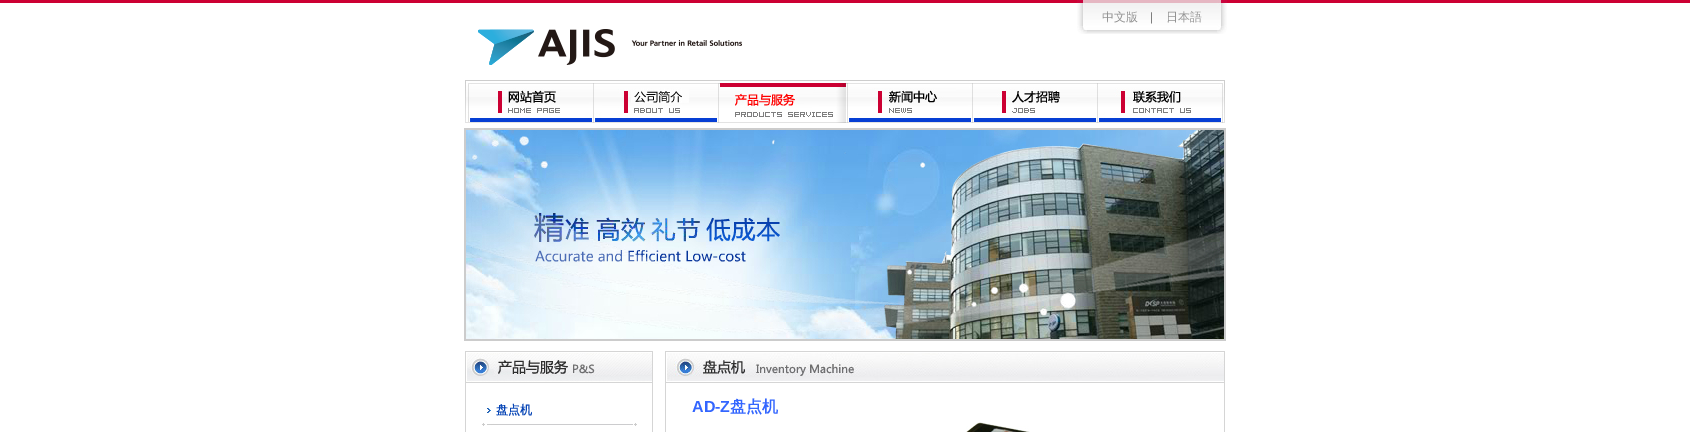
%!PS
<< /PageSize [1690 432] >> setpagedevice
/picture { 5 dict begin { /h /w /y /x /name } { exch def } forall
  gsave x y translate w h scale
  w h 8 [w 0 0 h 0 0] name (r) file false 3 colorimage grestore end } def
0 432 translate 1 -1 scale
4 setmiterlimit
1 setgray
0 0 1690 432 rectfill
0.8 0 0.2 setrgbcolor
0 0 1690 3 rectfill
(img1.rgb) 1077 0 10 34 picture
(img2.rgb) 1087 0 130 34 picture
/WenQuanYiZenHei-Medium [12 0 0 -12 0 0] selectfont
0.576 setgray
1102 21 moveto (中文版) show
/LiberationSans-Regular [12 0 0 -12 0 0] selectfont
0.494 setgray
1150 21 moveto (|) show
/WenQuanYiZenHei-Medium [12 0 0 -12 0 0] selectfont
0.576 setgray
1166 21 moveto (日本語) show
(img3.rgb) 1217 0 10 34 picture
(img4.rgb) 478 29 264 36 picture
(img5.rgb) 465 80 129 43 picture
(img6.rgb) 594 80 125 43 picture
(img7.rgb) 719 80 129 43 picture
(img8.rgb) 848 80 125 43 picture
(img9.rgb) 973 80 125 43 picture
(img10.rgb) 1098 80 127 43 picture
0.8 setgray
464 128 762 213 rectfill
(img11.rgb) 465 129 760 211 picture
0.835 setgray
465 351 188 81 rectfill
1 setgray
466 352 186 1 rectfill
(img12.rgb) 466 353 186 29 picture
466 383 186 49 rectfill
(img13.rgb) 487 408 4 5 picture
/WenQuanYiZenHei-Bold [12 0 0 -12 0 0] selectfont
0.031 0.275 0.714 setrgbcolor
496 414 moveto (盘点机) show
(img14.rgb) 482 423 155 3 picture
0.835 setgray
665 351 560 81 rectfill
1 setgray
666 352 558 30 rectfill
(img15.rgb) 667 353 557 28 picture
666 383 558 49 rectfill
/LiberationSans-Bold [16 0 0 -16 0 0] selectfont
0.2 0.4 1 setrgbcolor
692 412 moveto (AD-Z) show
/WenQuanYiZenHei-Bold [16 0 0 -16 0 0] selectfont
730 412 moveto (盘点机) show
(img16.rgb) 966 422 64 10 picture
showpage
